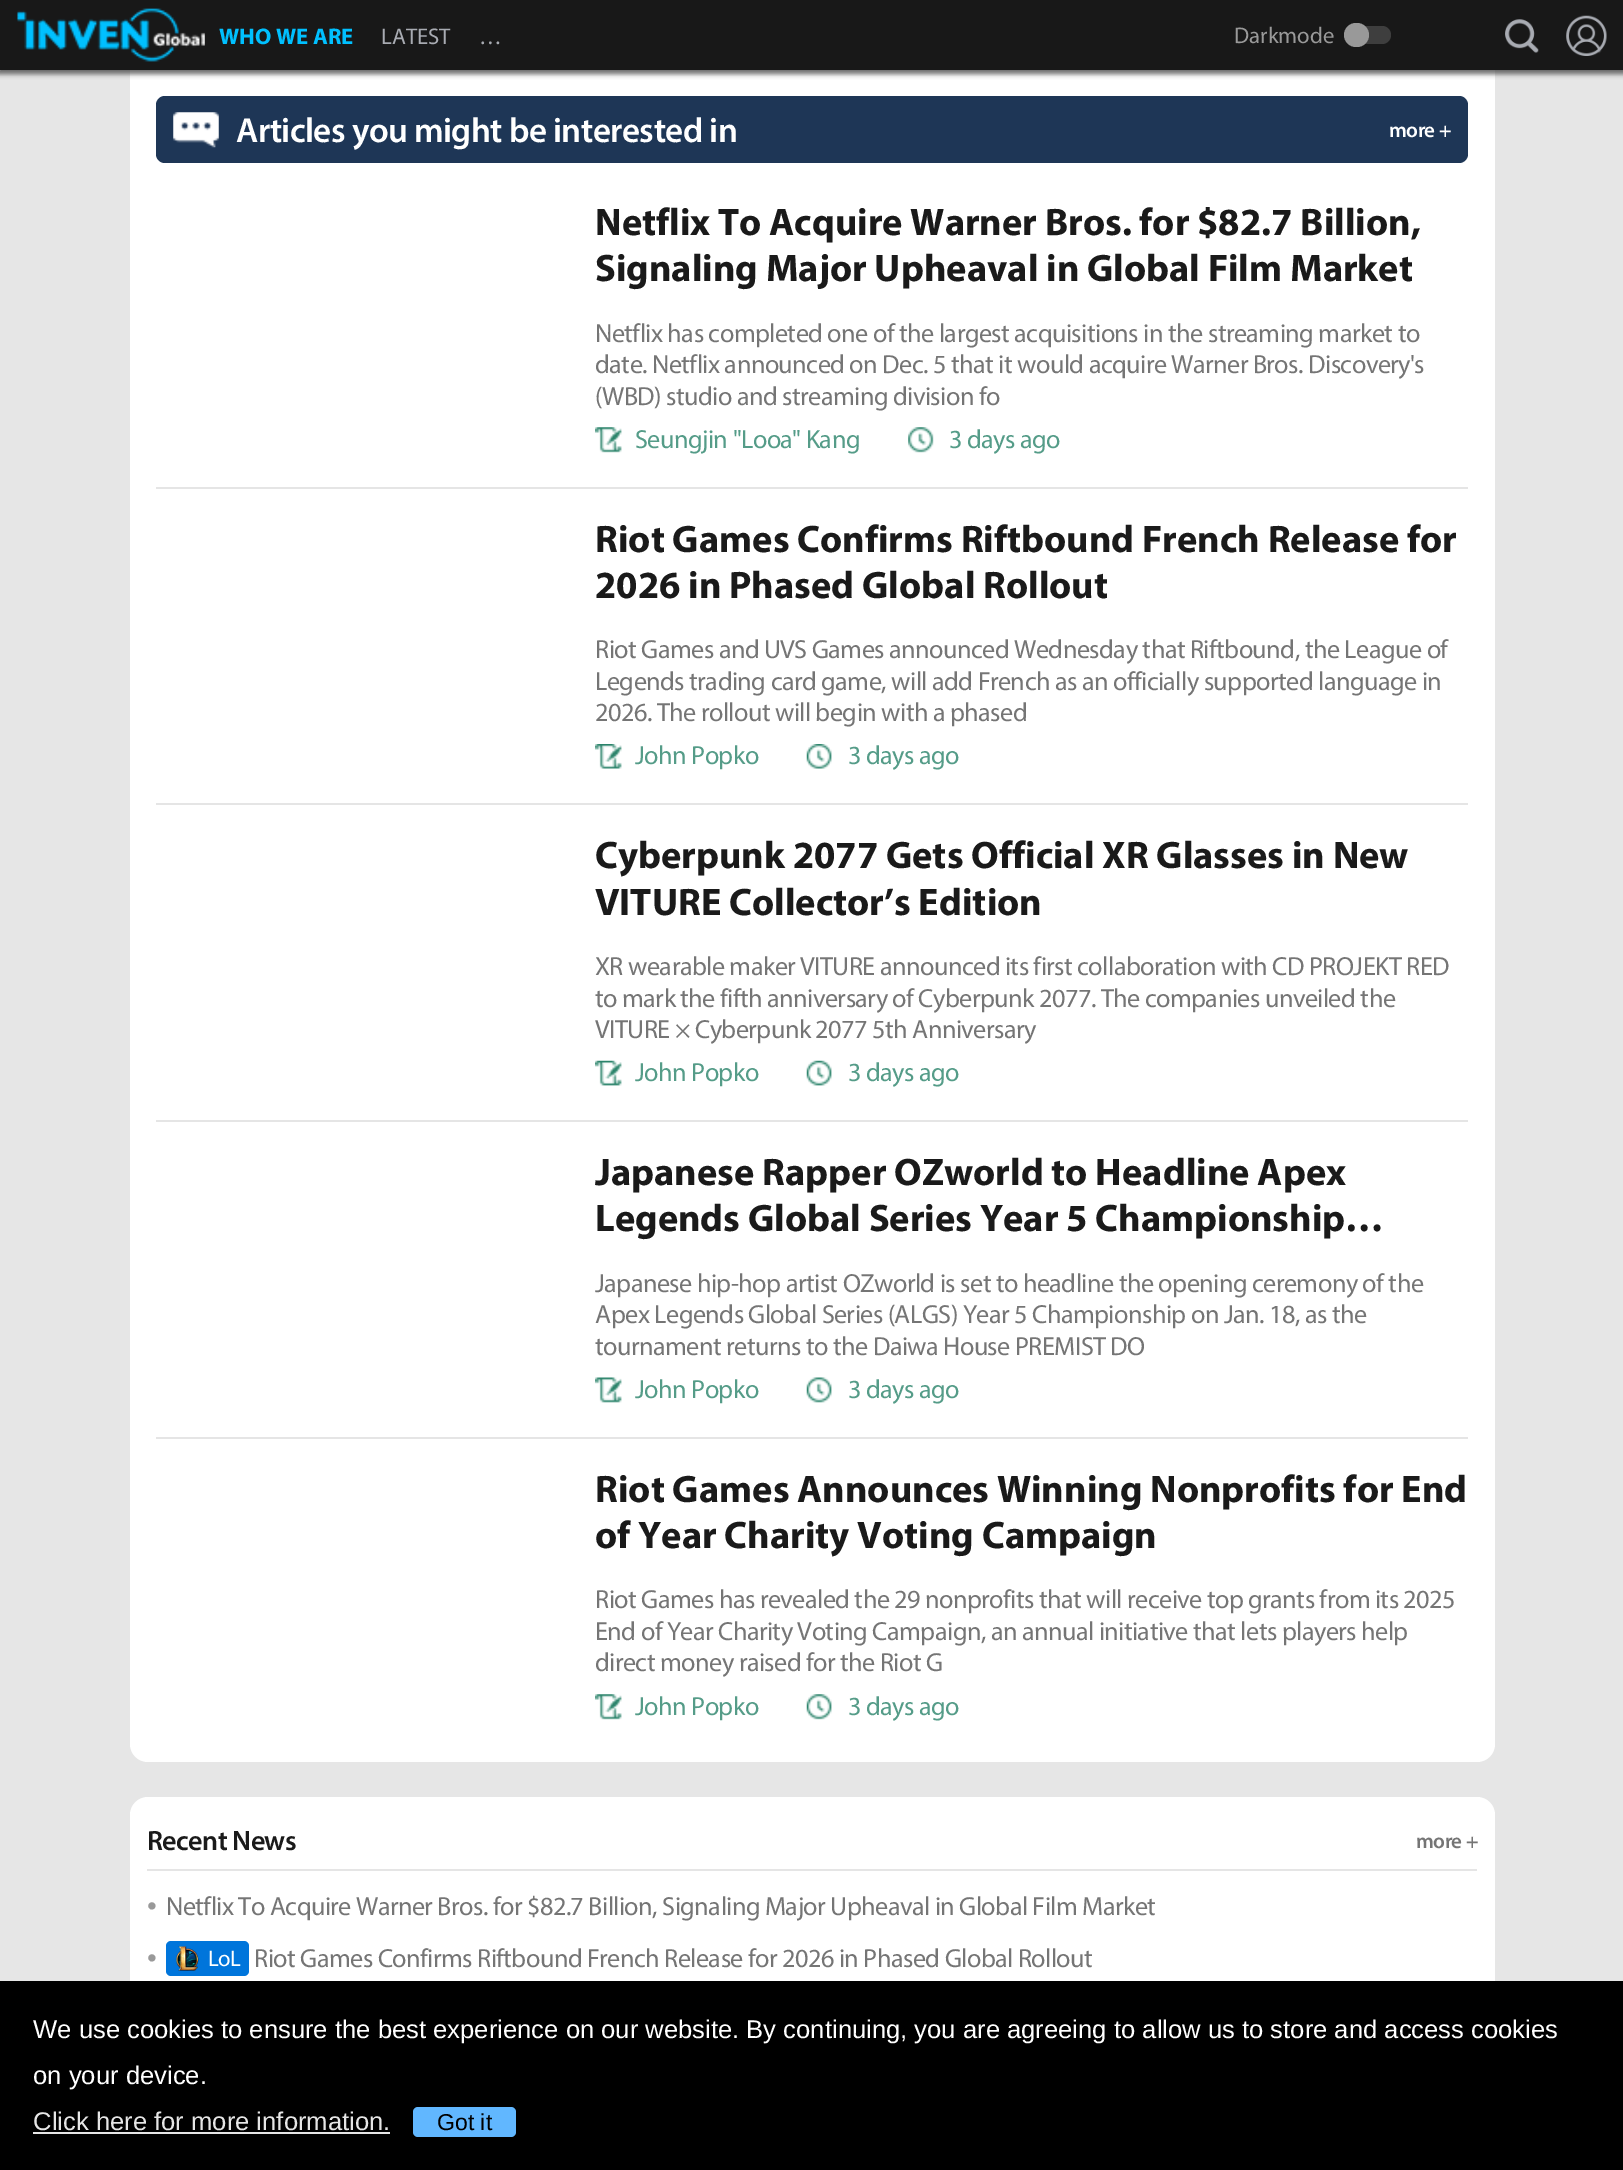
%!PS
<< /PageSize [1623 2170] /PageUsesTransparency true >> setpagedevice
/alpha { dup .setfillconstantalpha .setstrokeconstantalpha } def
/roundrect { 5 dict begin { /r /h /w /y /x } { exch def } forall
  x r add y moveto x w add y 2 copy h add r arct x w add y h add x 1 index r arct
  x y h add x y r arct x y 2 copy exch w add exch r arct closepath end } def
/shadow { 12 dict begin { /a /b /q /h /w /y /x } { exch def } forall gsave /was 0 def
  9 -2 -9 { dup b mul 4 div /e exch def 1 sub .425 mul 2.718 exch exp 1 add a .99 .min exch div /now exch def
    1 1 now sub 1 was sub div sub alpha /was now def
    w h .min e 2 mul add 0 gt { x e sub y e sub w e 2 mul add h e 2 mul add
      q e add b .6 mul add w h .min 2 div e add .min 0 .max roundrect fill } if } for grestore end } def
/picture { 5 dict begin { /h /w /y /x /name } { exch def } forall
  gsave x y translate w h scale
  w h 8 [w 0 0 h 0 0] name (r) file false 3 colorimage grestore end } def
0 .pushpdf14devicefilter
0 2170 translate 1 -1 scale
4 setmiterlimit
0.902 setgray
0 0 1623 2170 rectfill
1 setgray
130 44 1365 1718 18 roundrect fill
0.275 setgray
-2 0 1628 74 0 2.5 0.8 shadow
0.094 setgray
0 0 1623 70 rectfill
(img1.rgb) 17 8 188 54 picture
/Myriad-Bold [22.75 0 0 -22.75 0 0] selectfont
0 0.753 1 setrgbcolor
219 44 moveto (WHO WE ARE) show
/Myriad-Regular [22.75 0 0 -22.75 0 0] selectfont
0.659 0.671 0.698 setrgbcolor
381 44 moveto (LATEST) show
479 44 moveto (…) show
0.6 setgray
1234 43 moveto (Darkmode) show
0.243 setgray
1356 26 35 18 9 roundrect fill
0.6 setgray
1344 23 25 24 12 roundrect fill
(img2.rgb) 1566 15 41 41 picture
(img3.rgb) 1505 19 34 34 picture
0.118 0.212 0.337 setrgbcolor
156 96 1312 67 9 roundrect fill
(img4.rgb) 173 112 46 36 picture
/Myriad-SemiBold [35 0 0 -35 0 0] selectfont
1 setgray
236 142 moveto -0.55 0 (Articles you might be interested in) ashow
/Myriad-SemiBold [21 0 0 -21 0 0] selectfont
1389 137 moveto -0.55 0 (more +) ashow
0.898 setgray
156 487 1312 2 rectfill
/Myriad-Bold [38.5 0 0 -38.5 0 0] selectfont
0.102 setgray
595 235 moveto (Netflix To Acquire Warner Bros. for $82.7 Billion,) show
595 281 moveto (Signaling Major Upheaval in Global Film Market) show
/Myriad-Regular [26.25 0 0 -26.25 0 0] selectfont
0.459 setgray
595 342 moveto -0.55 0 (Netflix has completed one of the largest acquisitions in the streaming market to) ashow
595 373 moveto -0.55 0 (date. Netflix announced on Dec. 5 that it would acquire Warner Bros. Discovery's) ashow
595 405 moveto -0.55 0 (\(WBD\) studio and streaming division fo) ashow
(img5.rgb) 595 427 27 26 picture
0.333 0.612 0.533 setrgbcolor
635 448 moveto -0.55 0 (Seungjin "Looa" Kang) ashow
(img6.rgb) 908 427 26 26 picture
949 448 moveto -0.55 0 (3 days ago) ashow
0.898 setgray
156 803 1312 2 rectfill
/Myriad-Bold [38.5 0 0 -38.5 0 0] selectfont
0.102 setgray
595 552 moveto (Riot Games Confirms Riftbound French Release for) show
595 598 moveto (2026 in Phased Global Rollout) show
/Myriad-Regular [26.25 0 0 -26.25 0 0] selectfont
0.459 setgray
595 658 moveto -0.55 0 (Riot Games and UVS Games announced Wednesday that Riftbound, the League of) ashow
595 690 moveto -0.55 0 (Legends trading card game, will add French as an officially supported language in) ashow
595 721 moveto -0.55 0 (2026. The rollout will begin with a phased) ashow
(img7.rgb) 595 744 27 25 picture
0.333 0.612 0.533 setrgbcolor
635 764 moveto -0.55 0 (John Popko) ashow
(img8.rgb) 806 744 26 25 picture
848 764 moveto -0.55 0 (3 days ago) ashow
0.898 setgray
156 1120 1312 2 rectfill
/Myriad-Bold [38.5 0 0 -38.5 0 0] selectfont
0.102 setgray
595 868 moveto (Cyberpunk 2077 Gets Official XR Glasses in New) show
595 915 moveto (VITURE Collector’s Edition) show
/Myriad-Regular [26.25 0 0 -26.25 0 0] selectfont
0.459 setgray
595 975 moveto -0.55 0 (XR wearable maker VITURE announced its first collaboration with CD PROJEKT RED) ashow
595 1007 moveto -0.55 0 (to mark the fifth anniversary of Cyberpunk 2077. The companies unveiled the) ashow
595 1038 moveto -0.55 0 (VITURE × Cyberpunk 2077 5th Anniversary) ashow
(img9.rgb) 595 1060 27 26 picture
0.333 0.612 0.533 setrgbcolor
635 1081 moveto -0.55 0 (John Popko) ashow
(img10.rgb) 806 1060 26 26 picture
848 1081 moveto -0.55 0 (3 days ago) ashow
0.898 setgray
156 1437 1312 2 rectfill
/Myriad-Bold [38.5 0 0 -38.5 0 0] selectfont
0.102 setgray
595 1185 moveto (Japanese Rapper OZworld to Headline Apex) show
595 1231 moveto (Legends Global Series Year 5 Championship…) show
/Myriad-Regular [26.25 0 0 -26.25 0 0] selectfont
0.459 setgray
595 1292 moveto -0.55 0 (Japanese hip-hop artist OZworld is set to headline the opening ceremony of the) ashow
595 1323 moveto -0.55 0 (Apex Legends Global Series \(ALGS\) Year 5 Championship on Jan. 18, as the) ashow
595 1355 moveto -0.55 0 (tournament returns to the Daiwa House PREMIST DO) ashow
(img11.rgb) 595 1377 27 26 picture
0.333 0.612 0.533 setrgbcolor
635 1398 moveto -0.55 0 (John Popko) ashow
(img12.rgb) 806 1377 26 26 picture
848 1398 moveto -0.55 0 (3 days ago) ashow
/Myriad-Bold [38.5 0 0 -38.5 0 0] selectfont
0.102 setgray
595 1502 moveto (Riot Games Announces Winning Nonprofits for End) show
595 1548 moveto (of Year Charity Voting Campaign) show
/Myriad-Regular [26.25 0 0 -26.25 0 0] selectfont
0.459 setgray
595 1608 moveto -0.55 0 (Riot Games has revealed the 29 nonprofits that will receive top grants from its 2025) ashow
595 1640 moveto -0.55 0 (End of Year Charity Voting Campaign, an annual initiative that lets players help) ashow
595 1671 moveto -0.55 0 (direct money raised for the Riot G) ashow
(img5.rgb) 595 1694 27 26 picture
0.333 0.612 0.533 setrgbcolor
635 1715 moveto -0.55 0 (John Popko) ashow
(img13.rgb) 806 1694 26 26 picture
848 1715 moveto -0.55 0 (3 days ago) ashow
1 setgray
130 1797 1365 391 18 roundrect fill
0.898 setgray
147 1869 1330 2 rectfill
/Myriad-SemiBold [28 0 0 -28 0 0] selectfont
0.102 setgray
147 1850 moveto -0.55 0 (Recent News) ashow
/Myriad-SemiBold [21 0 0 -21 0 0] selectfont
0.459 setgray
1416 1848 moveto -0.55 0 (more +) ashow
/Myriad-Regular [35 0 0 -35 0 0] selectfont
0.6 setgray
147 1915 moveto -0.55 0 (•) ashow
/Myriad-Regular [26.25 0 0 -26.25 0 0] selectfont
0.459 setgray
166 1915 moveto -0.55 0 (Netflix To Acquire Warner Bros. for $82.7 Billion, Signaling Major Upheaval in Global Film Market) ashow
/Myriad-Regular [35 0 0 -35 0 0] selectfont
0.6 setgray
147 1967 moveto -0.55 0 (•) ashow
0 0.459 0.859 setrgbcolor
166 1941 83 35 5 roundrect fill
(img14.rgb) 175 1946 24 25 picture
/Myriad-Regular [22.75 0 0 -22.75 0 0] selectfont
1 setgray
208 1966 moveto -0.55 0 (LoL) ashow
/Myriad-Regular [26.25 0 0 -26.25 0 0] selectfont
0.459 setgray
254 1967 moveto -0.55 0 (Riot Games Confirms Riftbound French Release for 2026 in Phased Global Rollout) ashow
0 setgray
0 1981 1623 189 rectfill
/LiberationSans-Regular [25.62 0 0 -25.62 0 0] selectfont
1 setgray
33 2038 moveto (We use cookies to ensure the best experience on our website. By continuing, you are agreeing to allow us to store and access cookies) show
33 2084 moveto (on your device.) show
0.902 setgray
33 2130 moveto (Click here for more information.) show
33 2132 357 2 rectfill
0.38 0.718 1 setrgbcolor
413 2107 103 30 5 roundrect fill
/LiberationSans-Regular [23 0 0 -23 0 0] selectfont
0 setgray
437 2130 moveto (Got it) show
.poppdf14devicefilter showpage
